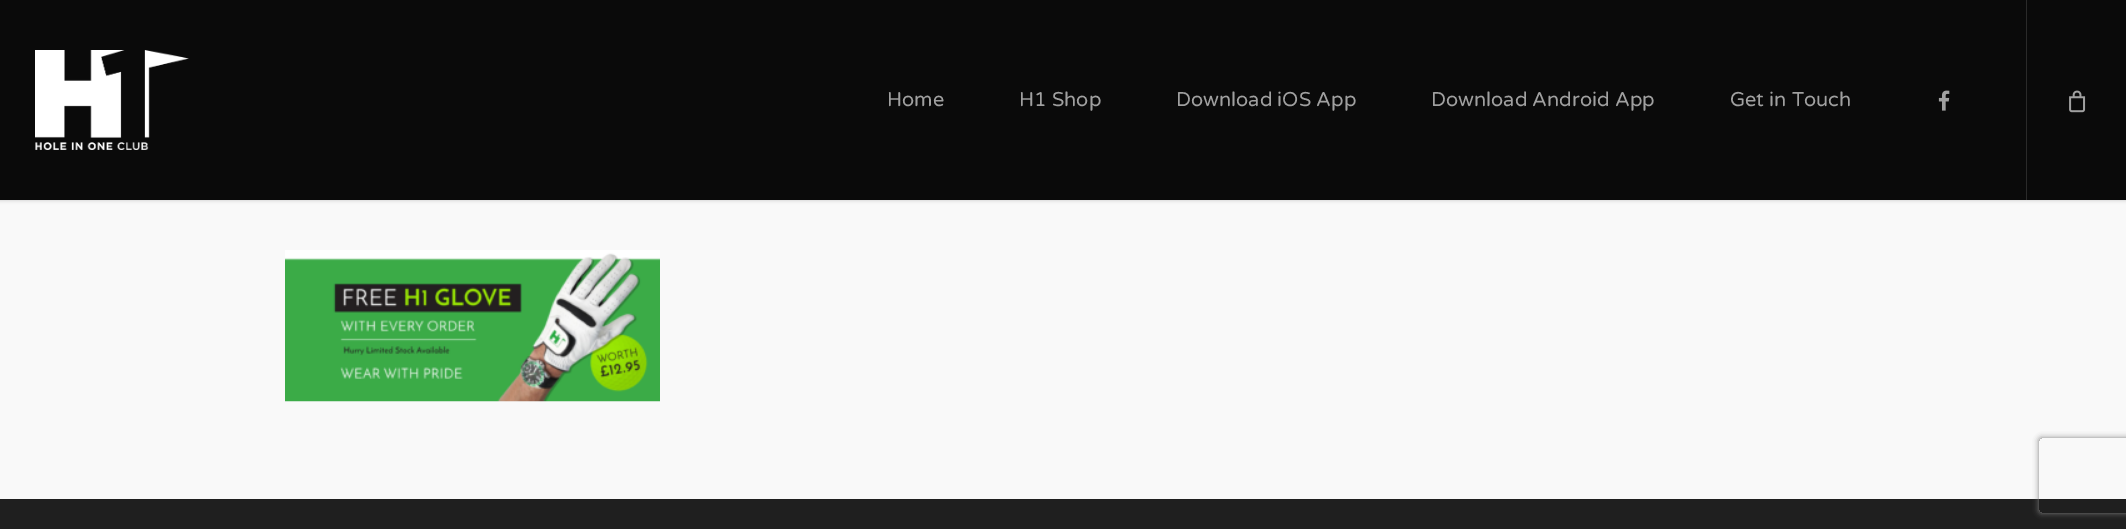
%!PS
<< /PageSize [2126 529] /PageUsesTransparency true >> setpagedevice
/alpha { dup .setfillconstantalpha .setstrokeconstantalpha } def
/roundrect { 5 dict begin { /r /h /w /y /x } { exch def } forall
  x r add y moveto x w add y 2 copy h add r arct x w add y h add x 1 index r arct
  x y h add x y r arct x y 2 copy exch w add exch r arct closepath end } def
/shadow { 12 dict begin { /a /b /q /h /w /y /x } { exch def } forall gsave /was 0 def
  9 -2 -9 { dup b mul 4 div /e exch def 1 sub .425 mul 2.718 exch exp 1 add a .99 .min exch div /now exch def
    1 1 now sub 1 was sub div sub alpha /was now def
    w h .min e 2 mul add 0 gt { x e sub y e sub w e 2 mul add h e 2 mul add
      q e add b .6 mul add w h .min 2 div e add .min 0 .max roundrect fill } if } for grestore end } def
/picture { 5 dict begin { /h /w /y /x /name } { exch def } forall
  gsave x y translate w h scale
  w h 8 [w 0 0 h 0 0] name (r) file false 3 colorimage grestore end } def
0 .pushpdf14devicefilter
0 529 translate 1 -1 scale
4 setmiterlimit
0.976 setgray
0 0 2126 529 rectfill
0 setgray
0 0 2126 200 0 2 0.22 shadow
0.039 setgray
0 0 2126 200 rectfill
(img1.rgb) 35 50 154 100 picture
/VarelaRound-Regular [20 0 0 -20 0 0] selectfont
0.627 setgray
887 106 moveto (Home) show
1019 106 moveto (H1 Shop) show
1176 106 moveto (Download iOS App) show
1431 106 moveto (Download Android App) show
1730 106 moveto (Get in Touch) show
(img2.rgb) 1938 90 12 21 picture
0.165 setgray
2026 0 1 200 rectfill
(img3.rgb) 2069 90 17 23 picture
(img4.rgb) 285 250 375 152 picture
0.122 setgray
0 499 2126 30 rectfill
gsave
newpath 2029 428 moveto 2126 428 lineto 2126 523 lineto 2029 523 lineto closepath 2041.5 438 moveto 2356.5 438 lineto 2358 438 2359 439 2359 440.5 curveto 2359 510.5 lineto 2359 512 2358 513 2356.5 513 curveto 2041.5 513 lineto 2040 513 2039 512 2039 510.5 curveto 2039 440.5 lineto 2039 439 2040 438 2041.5 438 curveto closepath eoclip newpath
0.502 setgray
2039 438 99 75 2.5 3 1 shadow
grestore
.poppdf14devicefilter showpage
